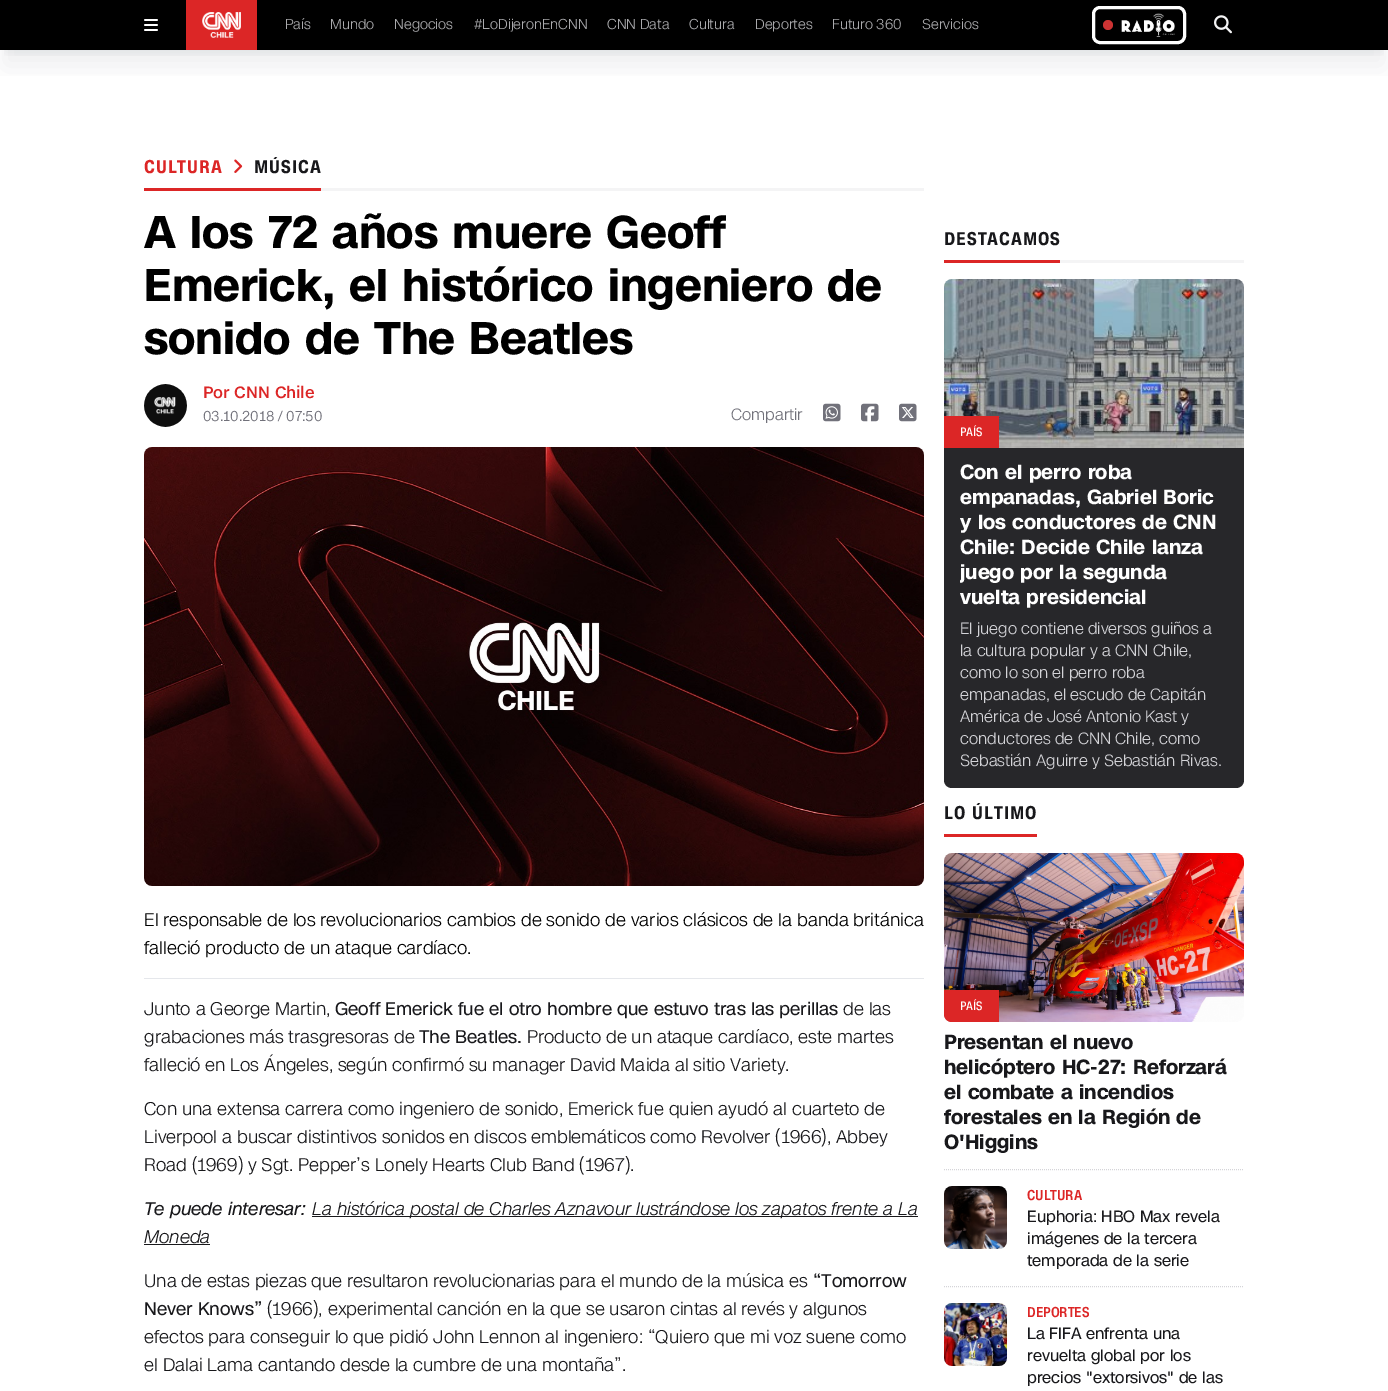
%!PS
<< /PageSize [1388 1391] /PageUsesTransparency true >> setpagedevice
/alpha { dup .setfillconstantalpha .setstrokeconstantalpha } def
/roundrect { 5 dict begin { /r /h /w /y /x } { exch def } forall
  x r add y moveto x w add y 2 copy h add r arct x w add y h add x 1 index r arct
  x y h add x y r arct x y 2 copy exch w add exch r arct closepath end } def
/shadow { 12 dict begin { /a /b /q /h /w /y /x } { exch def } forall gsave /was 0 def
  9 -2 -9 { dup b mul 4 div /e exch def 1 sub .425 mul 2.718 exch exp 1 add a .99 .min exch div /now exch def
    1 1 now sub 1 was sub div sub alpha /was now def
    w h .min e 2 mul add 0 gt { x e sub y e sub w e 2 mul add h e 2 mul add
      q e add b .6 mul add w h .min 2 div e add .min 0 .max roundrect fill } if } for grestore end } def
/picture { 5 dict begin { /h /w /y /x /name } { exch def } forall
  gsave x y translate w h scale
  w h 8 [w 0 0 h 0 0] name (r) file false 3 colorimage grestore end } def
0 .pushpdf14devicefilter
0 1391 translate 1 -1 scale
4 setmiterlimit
0 setgray
0 0 1388 1391 rectfill
1 setgray
0 50 1388 1341 rectfill
gsave
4 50 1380 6 rectclip
0.278 0.333 0.412 setrgbcolor
6 14 1376 38 0 5 0.1 shadow
grestore
gsave
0 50 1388 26 rectclip
0.278 0.333 0.412 setrgbcolor
5 25 1378 40 0 12.5 0.1 shadow
grestore
(img1.rgb) 144 19 14 12 picture
0.863 0.149 0.149 setrgbcolor
186 0 71 50 rectfill
(img2.rgb) 202 12 39 26 picture
/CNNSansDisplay-Light [14 0 0 -14 0 0] selectfont
0.667 0.667 0.678 setrgbcolor
285 29 moveto (País) show
330 29 moveto (Mundo) show
394 29 moveto (Negocios) show
474 29 moveto (#LoDijeronEnCNN) show
607 29 moveto (CNN Data) show
689 29 moveto (Cultura) show
755 29 moveto (Deportes) show
832 29 moveto (Futuro 360) show
922 29 moveto (Servicios) show
1 setgray
3 setlinewidth
1093.5 7.5 91 35 6.5 roundrect stroke
0.8 0.2 0.2 setrgbcolor
newpath 1108 25 5 0 360 arc closepath fill
(img3.rgb) 1121 13 54 24 picture
(img4.rgb) 1214 15 18 19 picture
0.863 0.149 0.149 setrgbcolor
144 188 177 3 rectfill
/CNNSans-Bold [18 0 0 -18 0 0] selectfont
144 173 moveto 1 0 (CULTURA) ashow
(img5.rgb) 234 159 9 14 picture
0.094 0.094 0.106 setrgbcolor
254 173 moveto 1 0 (MÚSICA) ashow
0.957 0.957 0.961 setrgbcolor
321 188 603 3 rectfill
/CNNSansDisplay-Bold [44.75 0 0 -44.75 0 0] selectfont
0 setgray
144 248 moveto (A los 72 años muere Geoff) show
144 301 moveto (Emerick, el histórico ingeniero de) show
144 354 moveto (sonido de The Beatles) show
(img6.rgb) 144 384 43 43 picture
/CNNSans-Medium [16 0 0 -16 0 0] selectfont
0.863 0.149 0.149 setrgbcolor
203 398 moveto (Por CNN Chile) show
/CNNSans-Light [14 0 0 -14 0 0] selectfont
0.443 0.443 0.478 setrgbcolor
203 421 moveto (03.10.2018 / 07:50) show
/CNNSansDisplay-Light [16 0 0 -16 0 0] selectfont
731 420 moveto (Compartir) show
(img7.rgb) 823 403 18 19 picture
(img8.rgb) 861 403 18 19 picture
(img9.rgb) 899 403 18 19 picture
(img10.rgb) 144 447 780 439 picture
/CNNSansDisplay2-Light [18 0 0 -18 0 0] selectfont
0 setgray
144 926 moveto (El responsable de los revolucionarios cambios de sonido de varios clásicos de la banda británica) show
144 954 moveto (falleció producto de un ataque cardíaco.) show
0.898 0.906 0.922 setrgbcolor
144 978 780 1 rectfill
0.094 0.094 0.106 setrgbcolor
144 1015 moveto (Junto a George Martin,) show
/CNNSansDisplay-Regular [18 0 0 -18 0 0] selectfont
335 1015 moveto (Geoff Emerick fue el otro hombre que estuvo tras las perillas) show
/CNNSansDisplay2-Light [18 0 0 -18 0 0] selectfont
843 1015 moveto (de las) show
144 1043 moveto (grabaciones más trasgresoras de) show
/CNNSansDisplay-Regular [18 0 0 -18 0 0] selectfont
419 1043 moveto (The Beatles.) show
/CNNSansDisplay2-Light [18 0 0 -18 0 0] selectfont
527 1043 moveto (Producto de un ataque cardíaco, este martes) show
144 1071 moveto (falleció en Los Ángeles, según confirmó su manager David Maida al sitio Variety.) show
144 1115 moveto (Con una extensa carrera como ingeniero de sonido, Emerick fue quien ayudó al cuarteto de) show
144 1143 moveto (Liverpool a buscar distintivos sonidos en discos emblemáticos como Revolver \(1966\), Abbey) show
144 1171 moveto (Road \(1969\) y Sgt. Pepper’s Lonely Hearts Club Band \(1967\).) show
/CNNSansDisplay-Italic [18 0 0 -18 0 0] selectfont
144 1215 moveto (Te puede interesar:) show
312 1216 606 1 rectfill
/CNNSansDisplay-LightItalic [18 0 0 -18 0 0] selectfont
312 1215 moveto (La histórica postal de Charles Aznavour lustrándose los zapatos frente a La) show
144 1243 moveto (Moneda) show
144 1244 66 1 rectfill
/CNNSansDisplay2-Light [18 0 0 -18 0 0] selectfont
144 1287 moveto (Una de estas piezas que resultaron revolucionarias para el mundo de la música es) show
/CNNSansDisplay-Regular [18 0 0 -18 0 0] selectfont
813 1287 moveto (“Tomorrow) show
144 1315 moveto (Never Knows”) show
/CNNSansDisplay2-Light [18 0 0 -18 0 0] selectfont
267 1315 moveto (\(1966\), experimental canción en la que se usaron cintas al revés y algunos) show
144 1343 moveto (efectos para conseguir lo que pidió John Lennon al ingeniero: “Quiero que mi voz suene como) show
144 1371 moveto (el Dalai Lama cantando desde la cumbre de una montaña”.) show
0.863 0.149 0.149 setrgbcolor
944 260 116 3 rectfill
/CNNSans-Bold [18 0 0 -18 0 0] selectfont
0.094 0.094 0.106 setrgbcolor
944 245 moveto 1 0 (DESTACAMOS) ashow
0.957 0.957 0.961 setrgbcolor
1060 260 184 3 rectfill
(img11.rgb) 944 279 300 169 picture
0.863 0.149 0.149 setrgbcolor
944 416 55 32 rectfill
/CNNSans-Regular [12 0 0 -12 0 0] selectfont
1 setgray
960 436 moveto (PAÍS) show
0.153 0.153 0.165 setrgbcolor
newpath 944 448 moveto 1244 448 lineto 1244 780 lineto 1244 784.5 1240.5 788 1236 788 curveto 952 788 lineto 947.5 788 944 784.5 944 780 curveto closepath fill
/CNNSansDisplay-Bold [20 0 0 -20 0 0] selectfont
1 setgray
960 479 moveto (Con el perro roba) show
960 504 moveto (empanadas, Gabriel Boric) show
960 529 moveto (y los conductores de CNN) show
960 554 moveto (Chile: Decide Chile lanza) show
gsave
960 460 268 150 rectclip
960 579 moveto (juego por la segunda) show
grestore
960 604 moveto (vuelta presidencial) show
/CNNSansDisplay-Light [16 0 0 -16 0 0] selectfont
0.831 0.831 0.847 setrgbcolor
960 634 moveto (El juego contiene diversos guiños a) show
960 656 moveto (la cultura popular y a CNN Chile,) show
960 678 moveto (como lo son el perro roba) show
960 700 moveto (empanadas, el escudo de Capitán) show
960 722 moveto (América de José Antonio Kast y) show
960 744 moveto (conductores de CNN Chile, como) show
960 766 moveto (Sebastián Aguirre y Sebastián Rivas.) show
0.863 0.149 0.149 setrgbcolor
944 834 93 3 rectfill
/CNNSans-Bold [18 0 0 -18 0 0] selectfont
0.094 0.094 0.106 setrgbcolor
944 819 moveto 1 0 (LO ÚLTIMO) ashow
0.831 0.831 0.847 setrgbcolor
1 setlinewidth
[1 1] 0 setdash
newpath 944 1169.5 moveto 1244 1169.5 lineto stroke
(img12.rgb) 944 853 300 169 picture
0.863 0.149 0.149 setrgbcolor
newpath 944 990 moveto 999 990 lineto 999 1022 lineto 952 1022 lineto 947.5 1022 944 1018.5 944 1014 curveto closepath fill
/CNNSans-Regular [12 0 0 -12 0 0] selectfont
1 setgray
960 1010 moveto (PAÍS) show
/CNNSansDisplay-Bold [20 0 0 -20 0 0] selectfont
0.094 0.094 0.106 setrgbcolor
944 1049 moveto (Presentan el nuevo) show
944 1074 moveto (helicóptero HC-27: Reforzará) show
944 1099 moveto (el combate a incendios) show
944 1124 moveto (forestales en la Región de) show
944 1149 moveto (O'Higgins) show
0.831 0.831 0.847 setrgbcolor
newpath 944 1286.5 moveto 1244 1286.5 lineto stroke
(img13.rgb) 944 1186 63 63 picture
/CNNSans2-Medium [14 0 0 -14 0 0] selectfont
0.863 0.149 0.149 setrgbcolor
1027 1200 moveto (CULTURA) show
/CNNSansDisplay-Regular [16 0 0 -16 0 0] selectfont
0.094 0.094 0.106 setrgbcolor
1027 1222 moveto (Euphoria: HBO Max revela) show
1027 1244 moveto (imágenes de la tercera) show
1027 1266 moveto (temporada de la serie) show
(img14.rgb) 944 1303 63 63 picture
/CNNSans2-Medium [14 0 0 -14 0 0] selectfont
0.863 0.149 0.149 setrgbcolor
1027 1317 moveto (DEPORTES) show
/CNNSansDisplay-Regular [16 0 0 -16 0 0] selectfont
0.094 0.094 0.106 setrgbcolor
1027 1339 moveto (La FIFA enfrenta una) show
1027 1361 moveto (revuelta global por los) show
1027 1383 moveto (precios "extorsivos" de las) show
.poppdf14devicefilter showpage
